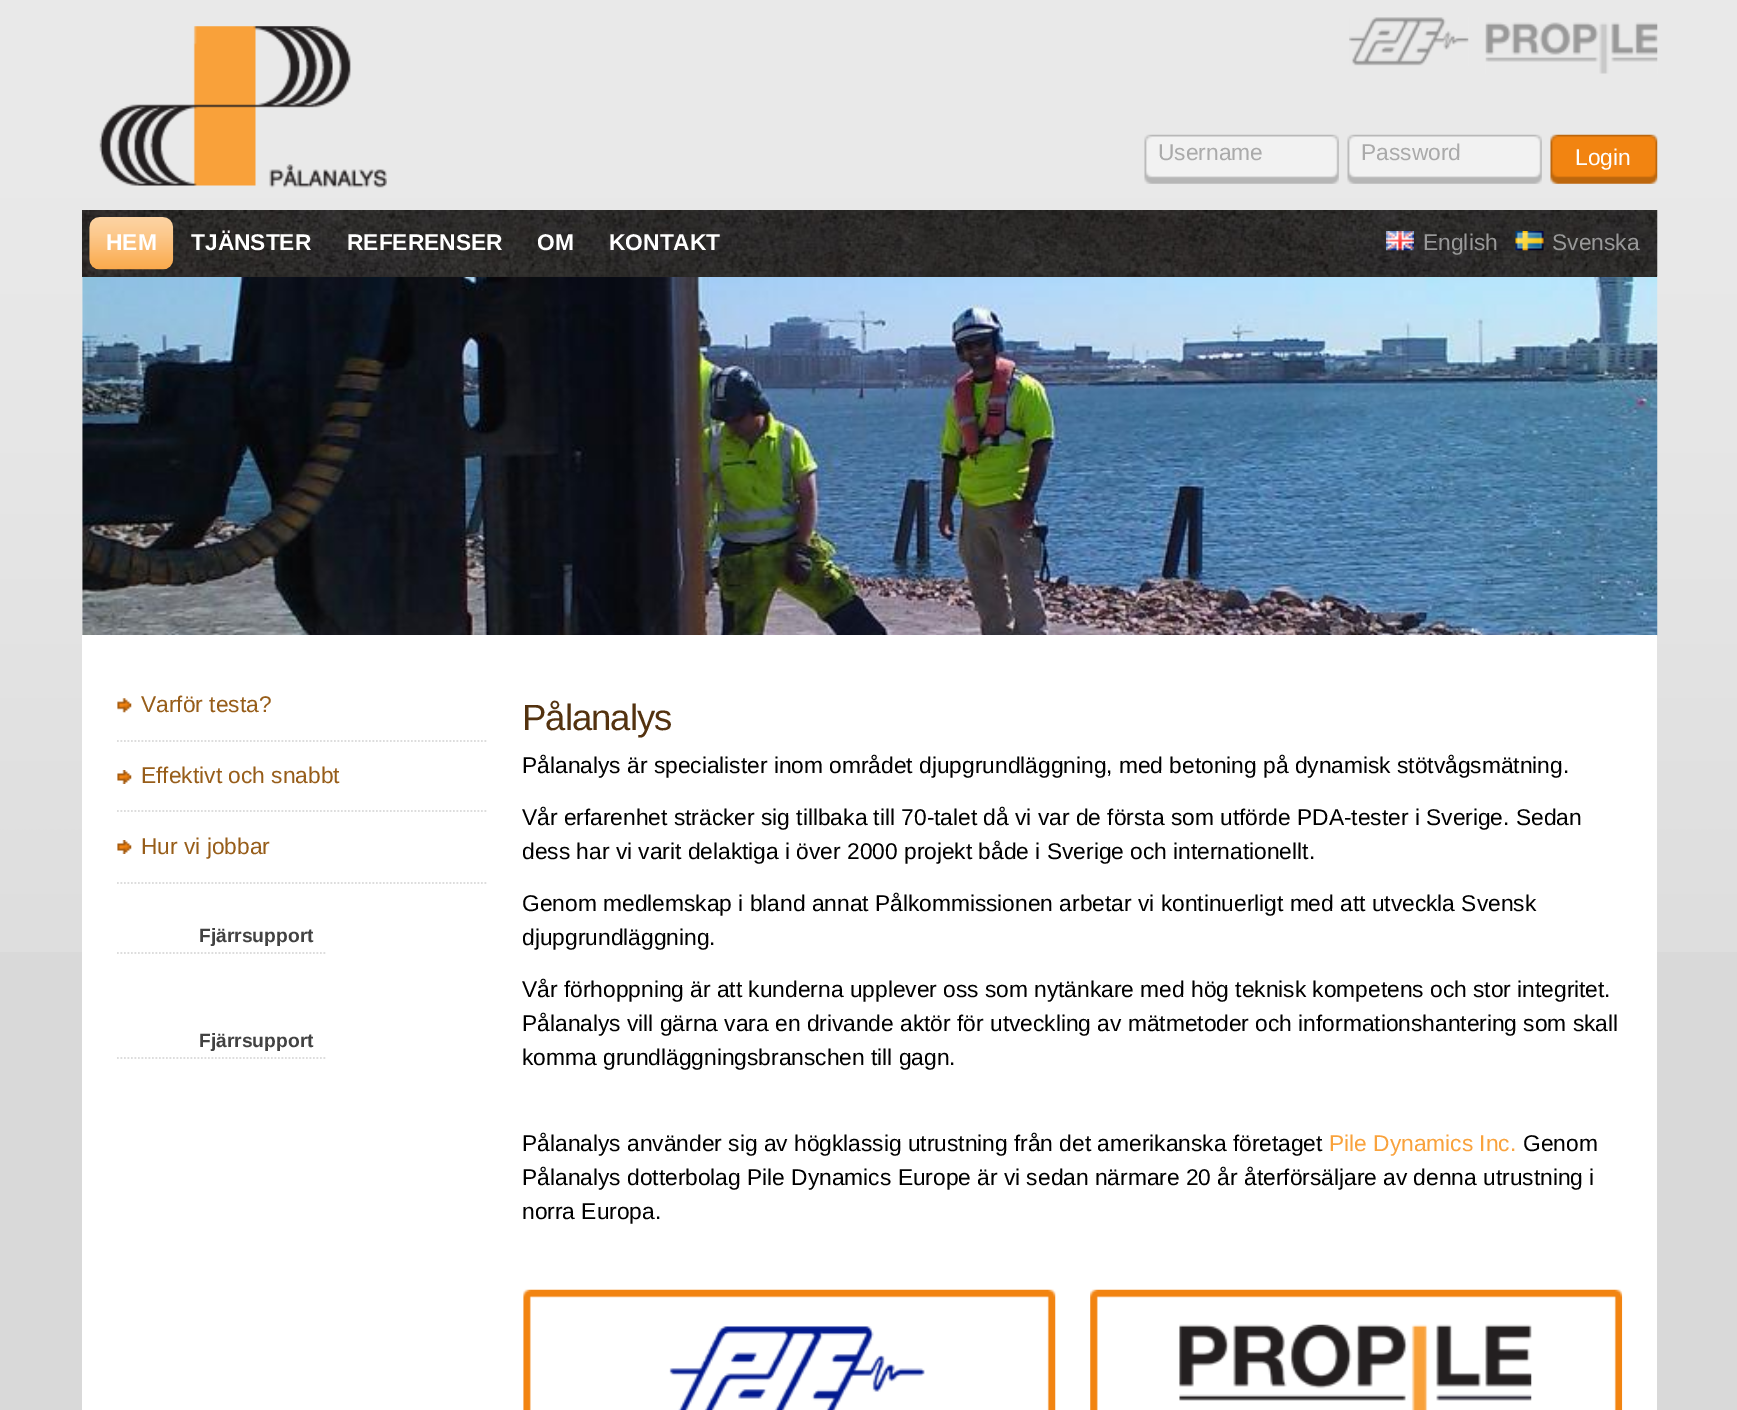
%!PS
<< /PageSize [1737 1410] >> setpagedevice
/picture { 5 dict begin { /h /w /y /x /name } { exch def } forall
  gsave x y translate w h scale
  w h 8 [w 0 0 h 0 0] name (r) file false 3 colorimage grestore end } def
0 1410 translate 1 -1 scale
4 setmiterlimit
0.851 setgray
0 0 1737 1410 rectfill
(img1.rgb) 0 0 1737 952 picture
(img2.rgb) 99 26 288 162 picture
(img3.rgb) 1349 17 120 49 picture
(img4.rgb) 1485 22 173 52 picture
(img5.rgb) 1144 134 195 50 picture
/LiberationSans-Regular [22.75 0 0 -22.75 0 0] selectfont
0.667 setgray
1158 160 moveto (Username) show
(img5.rgb) 1347 134 195 50 picture
1361 160 moveto (Password) show
(img6.rgb) 1550 134 108 50 picture
1 setgray
1575 165 moveto (Login) show
(img11.rgb) 82 276 1576 360 picture
0.173 0.161 0.153 setrgbcolor
82 210 1575 67 rectfill
(img7.rgb) 82 210 1576 67 picture
(img8.rgb) 89 217 85 53 picture
/LiberationSans-Bold [22.75 0 0 -22.75 0 0] selectfont
1 setgray
106 250 moveto (HEM) show
191 250 moveto (TJÄNSTER) show
347 250 moveto (REFERENSER) show
537 250 moveto (OM) show
609 250 moveto (KONTAKT) show
(img9.rgb) 1386 231 28 20 picture
/LiberationSans-Regular [22.75 0 0 -22.75 0 0] selectfont
0.6 setgray
1423 250 moveto (English) show
(img10.rgb) 1515 231 29 20 picture
1552 250 moveto (Svenska) show
1 setgray
82 635 1575 775 rectfill
(img12.rgb) 117 698 15 15 picture
0.867 setgray
1.8 setlinewidth
[1.75 1.75] 0 setdash
newpath 117 741 moveto 488 741 lineto stroke
0.592 0.365 0.098 setrgbcolor
141 712 moveto (Varför testa?) show
(img13.rgb) 117 770 15 14 picture
0.867 setgray
newpath 117 811 moveto 488 811 lineto stroke
0.592 0.365 0.098 setrgbcolor
141 783 moveto (Effektivt och snabbt) show
(img13.rgb) 117 840 15 14 picture
0.867 setgray
newpath 117 883 moveto 488 883 lineto stroke
0.592 0.365 0.098 setrgbcolor
141 854 moveto (Hur vi jobbar) show
0.867 setgray
newpath 117 953 moveto 327 953 lineto stroke
/LiberationSans-Bold [19.25 0 0 -19.25 0 0] selectfont
0.259 setgray
199 942 moveto (Fjärrsupport) show
0.867 setgray
newpath 117 1058 moveto 327 1058 lineto stroke
0.259 setgray
199 1047 moveto (Fjärrsupport) show
/LiberationSans-Regular [36.5 0 0 -36.5 0 0] selectfont
0.325 0.196 0.059 setrgbcolor
522 730 moveto -1 0 (Pålanalys) ashow
/LiberationSans-Regular [22.75 0 0 -22.75 0 0] selectfont
0 setgray
522 773 moveto (Pålanalys är specialister inom området djupgrundläggning, med betoning på dynamisk stötvågsmätning.) show
522 825 moveto (Vår erfarenhet sträcker sig tillbaka till 70-talet då vi var de första som utförde PDA-tester i Sverige. Sedan) show
522 859 moveto (dess har vi varit delaktiga i över 2000 projekt både i Sverige och internationellt.) show
522 911 moveto (Genom medlemskap i bland annat Pålkommissionen arbetar vi kontinuerligt med att utveckla Svensk) show
522 945 moveto (djupgrundläggning.) show
522 997 moveto (Vår förhoppning är att kunderna upplever oss som nytänkare med hög teknisk kompetens och stor integritet.) show
522 1031 moveto (Pålanalys vill gärna vara en drivande aktör för utveckling av mätmetoder och informationshantering som skall) show
522 1065 moveto (komma grundläggningsbranschen till gagn.) show
522 1151 moveto (Pålanalys använder sig av högklassig utrustning från det amerikanska företaget) show
0.976 0.635 0.235 setrgbcolor
1329 1151 moveto (Pile Dynamics Inc.) show
0 setgray
1523 1151 moveto (Genom) show
522 1185 moveto (Pålanalys dotterbolag Pile Dynamics Europe är vi sedan närmare 20 år återförsäljare av denna utrustning i) show
522 1219 moveto (norra Europa.) show
(img14.rgb) 523 1289 533 121 picture
(img15.rgb) 669 1326 256 84 picture
(img16.rgb) 1090 1289 533 121 picture
(img17.rgb) 1179 1324 353 86 picture
showpage
